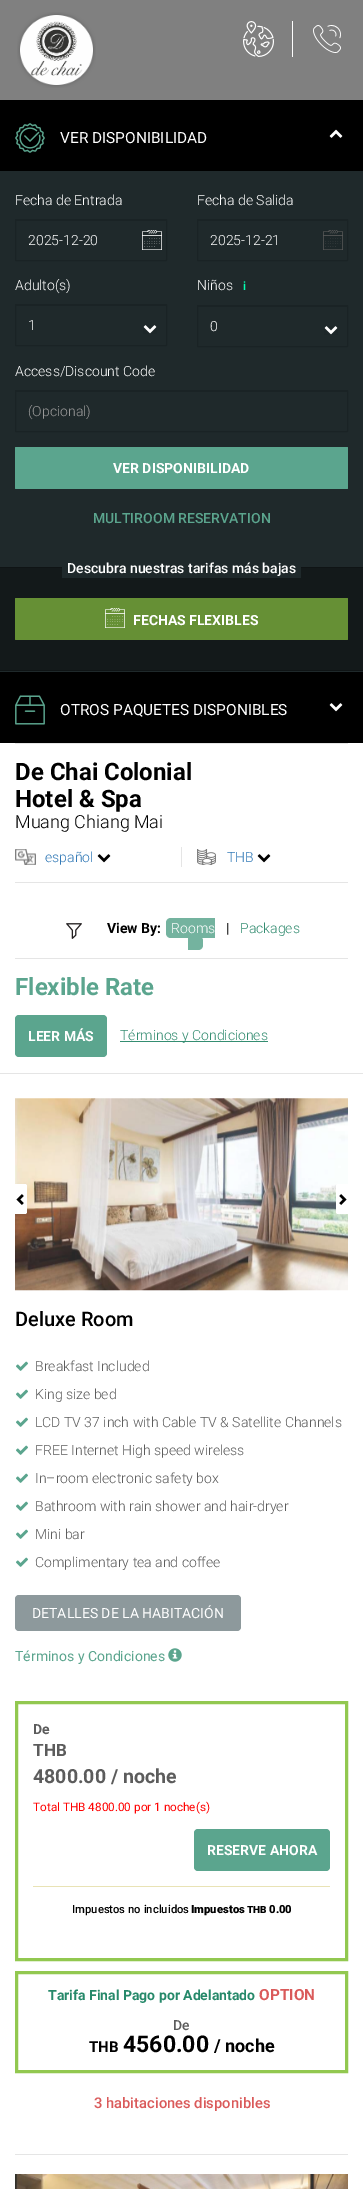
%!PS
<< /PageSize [363 2189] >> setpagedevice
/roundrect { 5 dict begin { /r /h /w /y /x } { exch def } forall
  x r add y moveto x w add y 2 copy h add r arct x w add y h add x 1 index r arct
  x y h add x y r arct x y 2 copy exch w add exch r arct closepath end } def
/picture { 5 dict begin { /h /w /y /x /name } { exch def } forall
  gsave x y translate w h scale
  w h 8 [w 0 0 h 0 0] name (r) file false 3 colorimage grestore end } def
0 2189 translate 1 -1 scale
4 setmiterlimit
1 setgray
0 0 363 2189 rectfill
0.502 setgray
0 0 363 100 rectfill
(img1.rgb) 17 12 79 76 picture
(img2.rgb) 243 21 31 36 picture
1 setgray
292 21 1 36 rectfill
(img3.rgb) 313 25 28 28 picture
0.122 0.161 0.169 setrgbcolor
0 171 363 501 rectfill
0 setgray
0 100 363 71 rectfill
(img4.rgb) 15 123 30 30 picture
/Roboto-Regular [15.4 0 0 -15.4 0 0] selectfont
1 setgray
60 143 moveto (VER DISPONIBILIDAD) show
(img5.rgb) 329 129 14 9 picture
/Roboto-Light [14 0 0 -14 0 0] selectfont
15 205 moveto (Fecha de Entrada) show
(img6.rgb) 142 230 20 20 picture
0.106 0.141 0.149 setrgbcolor
16 220 150 1 rectfill
0.102 0.137 0.145 setrgbcolor
15.5 219.5 151 41 0.5 roundrect stroke
1 setgray
28 245 moveto (2025-12-20) show
197 205 moveto (Fecha de Salida) show
(img7.rgb) 323 230 20 20 picture
0.106 0.141 0.149 setrgbcolor
198 220 149 1 rectfill
0.102 0.137 0.145 setrgbcolor
197.5 219.5 150 41 0.5 roundrect stroke
1 setgray
210 245 moveto (2025-12-21) show
15 290 moveto (Adulto\(s\)) show
0.106 0.141 0.149 setrgbcolor
16 305 150 1 rectfill
0.102 0.137 0.145 setrgbcolor
15.5 304.5 151 41 0.5 roundrect stroke
1 setgray
28 330 moveto (1) show
(img8.rgb) 143 325 14 9 picture
197 290 moveto (Niños) show
/Roboto-Medium [12 0 0 -12 0 0] selectfont
0.016 1 0.694 setrgbcolor
243 290 moveto (i) show
0.106 0.141 0.149 setrgbcolor
198 306 149 1 rectfill
0.102 0.137 0.145 setrgbcolor
197.5 305.5 150 41 0.5 roundrect stroke
/Roboto-Light [14 0 0 -14 0 0] selectfont
1 setgray
210 331 moveto (0) show
(img8.rgb) 324 326 14 9 picture
15 376 moveto (Access/Discount Code) show
0.106 0.141 0.149 setrgbcolor
16 391 331 1 rectfill
0.102 0.137 0.145 setrgbcolor
15.5 390.5 332 41 0.5 roundrect stroke
0.6 setgray
28 416 moveto (\(Opcional\)) show
0.357 0.647 0.557 setrgbcolor
15 447 333 42 1 roundrect fill
/Roboto-Bold [14 0 0 -14 0 0] selectfont
1 setgray
113 473 moveto (VER DISPONIBILIDAD) show
/Roboto-Medium [14 0 0 -14 0 0] selectfont
0.357 0.647 0.557 setrgbcolor
93 523 moveto (MULTIROOM RESERVATION) show
0.075 0.098 0.102 setrgbcolor
0 568 363 102 rectfill
0.059 0.078 0.082 setrgbcolor
0 567 363 1 rectfill
0 670 363 1 rectfill
0.122 0.161 0.169 setrgbcolor
62 567 239 11 rectfill
1 setgray
67 573 moveto (Descubra nuestras tarifas más bajas) show
0.4 0.565 0.208 setrgbcolor
15 598 333 42 1 roundrect fill
(img9.rgb) 105 608 20 20 picture
/Roboto-Bold [14 0 0 -14 0 0] selectfont
1 setgray
133 625 moveto (FECHAS FLEXIBLES) show
0 setgray
0 672 363 71 rectfill
(img10.rgb) 15 695 30 30 picture
/Roboto-Regular [15.4 0 0 -15.4 0 0] selectfont
1 setgray
60 715 moveto (OTROS PAQUETES DISPONIBLES) show
(img11.rgb) 329 703 14 9 picture
0.898 setgray
15 743 333 1 rectfill
15 882 333 1 rectfill
/Roboto-Bold [24 0 0 -24 0 0] selectfont
0 setgray
15 780 moveto (De Chai Colonial) show
15 807 moveto (Hotel & Spa) show
/Roboto-Light [18 0 0 -18 0 0] selectfont
15 828 moveto (Muang Chiang Mai) show
0.898 setgray
181 847 1 20 rectfill
(img12.rgb) 15 849 21 16 picture
/Roboto-Light [14 0 0 -14 0 0] selectfont
0.2 0.478 0.718 setrgbcolor
45 862 moveto (español) show
(img13.rgb) 97 854 14 9 picture
(img14.rgb) 197 849 19 16 picture
227 862 moveto (THB) show
(img13.rgb) 257 854 14 9 picture
0.898 setgray
15 958 333 1 rectfill
(img15.rgb) 66 923 16 16 picture
/Roboto-Bold [14 0 0 -14 0 0] selectfont
0 setgray
107 933 moveto (View By:) show
0.455 0.702 0.624 setrgbcolor
newpath 171 918 moveto 215 918 lineto 215 938 lineto 171 938 lineto 168 938 166 936 166 933 curveto 166 923 lineto 166 920 168 918 171 918 curveto closepath fill
/Roboto-Light [14 0 0 -14 0 0] selectfont
1 setgray
171 933 moveto (Rooms) show
0.455 0.702 0.624 setrgbcolor
newpath 188 936 moveto 198 936 lineto 201 936 203 938 203 941 curveto 203 945 lineto 203 948 201 950 198 950 curveto 188 950 lineto closepath fill
/Roboto-Bold [14 0 0 -14 0 0] selectfont
0 setgray
226 933 moveto (|) show
/Roboto-Light [14 0 0 -14 0 0] selectfont
0.204 0.553 0.443 setrgbcolor
240 933 moveto (Packages) show
0.898 setgray
0 1073 363 1 rectfill
/Roboto-Bold [24 0 0 -24 0 0] selectfont
0.357 0.647 0.557 setrgbcolor
15 995 moveto (Flexible Rate) show
15 1015 92 42 4 roundrect fill
/Roboto-Bold [14 0 0 -14 0 0] selectfont
1 setgray
28 1041 moveto (LEER MÁS) show
0.204 0.553 0.443 setrgbcolor
120 1041 148 1 rectfill
/Roboto-Light [14 0 0 -14 0 0] selectfont
120 1040 moveto (Términos y Condiciones) show
0.898 setgray
15 2154 333 1 rectfill
(img16.rgb) 15 1098 333 193 picture
1 setgray
newpath 15 1184 moveto 25 1184 lineto 26 1184 27 1185 27 1186 curveto 27 1212 lineto 27 1213 26 1214 25 1214 curveto 15 1214 lineto closepath fill
(img17.rgb) 16 1194 8 11 picture
newpath 338 1184 moveto 348 1184 lineto 348 1214 lineto 338 1214 lineto 337 1214 336 1213 336 1212 curveto 336 1186 lineto 336 1185 337 1184 338 1184 curveto closepath fill
(img18.rgb) 339 1194 8 11 picture
/Roboto-Medium [20 0 0 -20 0 0] selectfont
0 setgray
15 1326 moveto (Deluxe Room) show
(img19.rgb) 16 1361 12 10 picture
/Roboto-Light [14 0 0 -14 0 0] selectfont
0.361 setgray
35 1371 moveto (Breakfast Included) show
(img19.rgb) 16 1389 12 10 picture
35 1399 moveto (King size bed) show
(img19.rgb) 16 1417 12 10 picture
35 1427 moveto (LCD TV 37 inch with Cable TV & Satellite Channels) show
(img19.rgb) 16 1445 12 10 picture
35 1455 moveto (FREE Internet High speed wireless) show
(img19.rgb) 16 1473 12 10 picture
35 1483 moveto (In–room electronic safety box) show
(img19.rgb) 16 1501 12 10 picture
35 1511 moveto (Bathroom with rain shower and hair-dryer) show
(img19.rgb) 16 1529 12 10 picture
35 1539 moveto (Mini bar) show
(img19.rgb) 16 1557 12 10 picture
35 1567 moveto (Complimentary tea and coffee) show
0.553 0.6 0.612 setrgbcolor
15 1595 226 36 4 roundrect fill
/Roboto-Regular [14 0 0 -14 0 0] selectfont
1 setgray
32 1618 moveto (DETALLES DE LA HABITACIÓN) show
0.357 0.647 0.557 setrgbcolor
15 1661 moveto (Términos y Condiciones) show
(img20.rgb) 168 1648 14 14 picture
0.573 0.784 0.314 setrgbcolor
3 setlinewidth
16.5 1702.5 330 257 rectstroke
/Roboto-Bold [14 0 0 -14 0 0] selectfont
0.361 setgray
33 1734 moveto (De) show
/Roboto-Bold [17 0 0 -17 0 0] selectfont
33 1756 moveto (THB) show
/Roboto-Bold [19.5 0 0 -19.5 0 0] selectfont
33 1783 moveto (4800.00 / noche) show
/Roboto-Regular [11.75 0 0 -11.75 0 0] selectfont
1 0 0 setrgbcolor
33 1811 moveto (Total THB 4800.00 por 1 noche\(s\)) show
0.357 0.647 0.557 setrgbcolor
194 1829 136 42 4 roundrect fill
/Roboto-Bold [14 0 0 -14 0 0] selectfont
1 setgray
207 1855 moveto (RESERVE AHORA) show
0.914 0.89 0.71 setrgbcolor
33 1886 297 1 rectfill
/Roboto-Medium [11.25 0 0 -11.25 0 0] selectfont
0 setgray
72 1913 moveto (Impuestos no incluidos) show
/Roboto-Black [11.25 0 0 -11.25 0 0] selectfont
191 1913 moveto (Impuestos) show
/Roboto-Black [10 0 0 -10 0 0] selectfont
247 1913 moveto (THB) show
/Roboto-Black [11.25 0 0 -11.25 0 0] selectfont
269 1913 moveto (0.00) show
0.573 0.784 0.314 setrgbcolor
16.5 1972.5 330 99 rectstroke
/Roboto-Bold [14 0 0 -14 0 0] selectfont
0.149 0.537 0.416 setrgbcolor
48 2000 moveto (Tarifa Final Pago por Adelantado) show
/Roboto-Bold [15.4 0 0 -15.4 0 0] selectfont
0.855 0.353 0.353 setrgbcolor
259 2000 moveto (OPTION) show
/Roboto-Medium [14 0 0 -14 0 0] selectfont
0.361 setgray
173 2030 moveto (De) show
/Roboto-Bold [15 0 0 -15 0 0] selectfont
0 setgray
89 2052 moveto (THB) show
/Roboto-Bold [23 0 0 -23 0 0] selectfont
123 2052 moveto (4560.00) show
/Roboto-Bold [18 0 0 -18 0 0] selectfont
214 2052 moveto (/ noche) show
/Roboto-Medium [14.75 0 0 -14.75 0 0] selectfont
0.855 0.353 0.353 setrgbcolor
94 2108 moveto (3 habitaciones disponibles) show
(img21.rgb) 15 2174 333 15 picture
showpage
